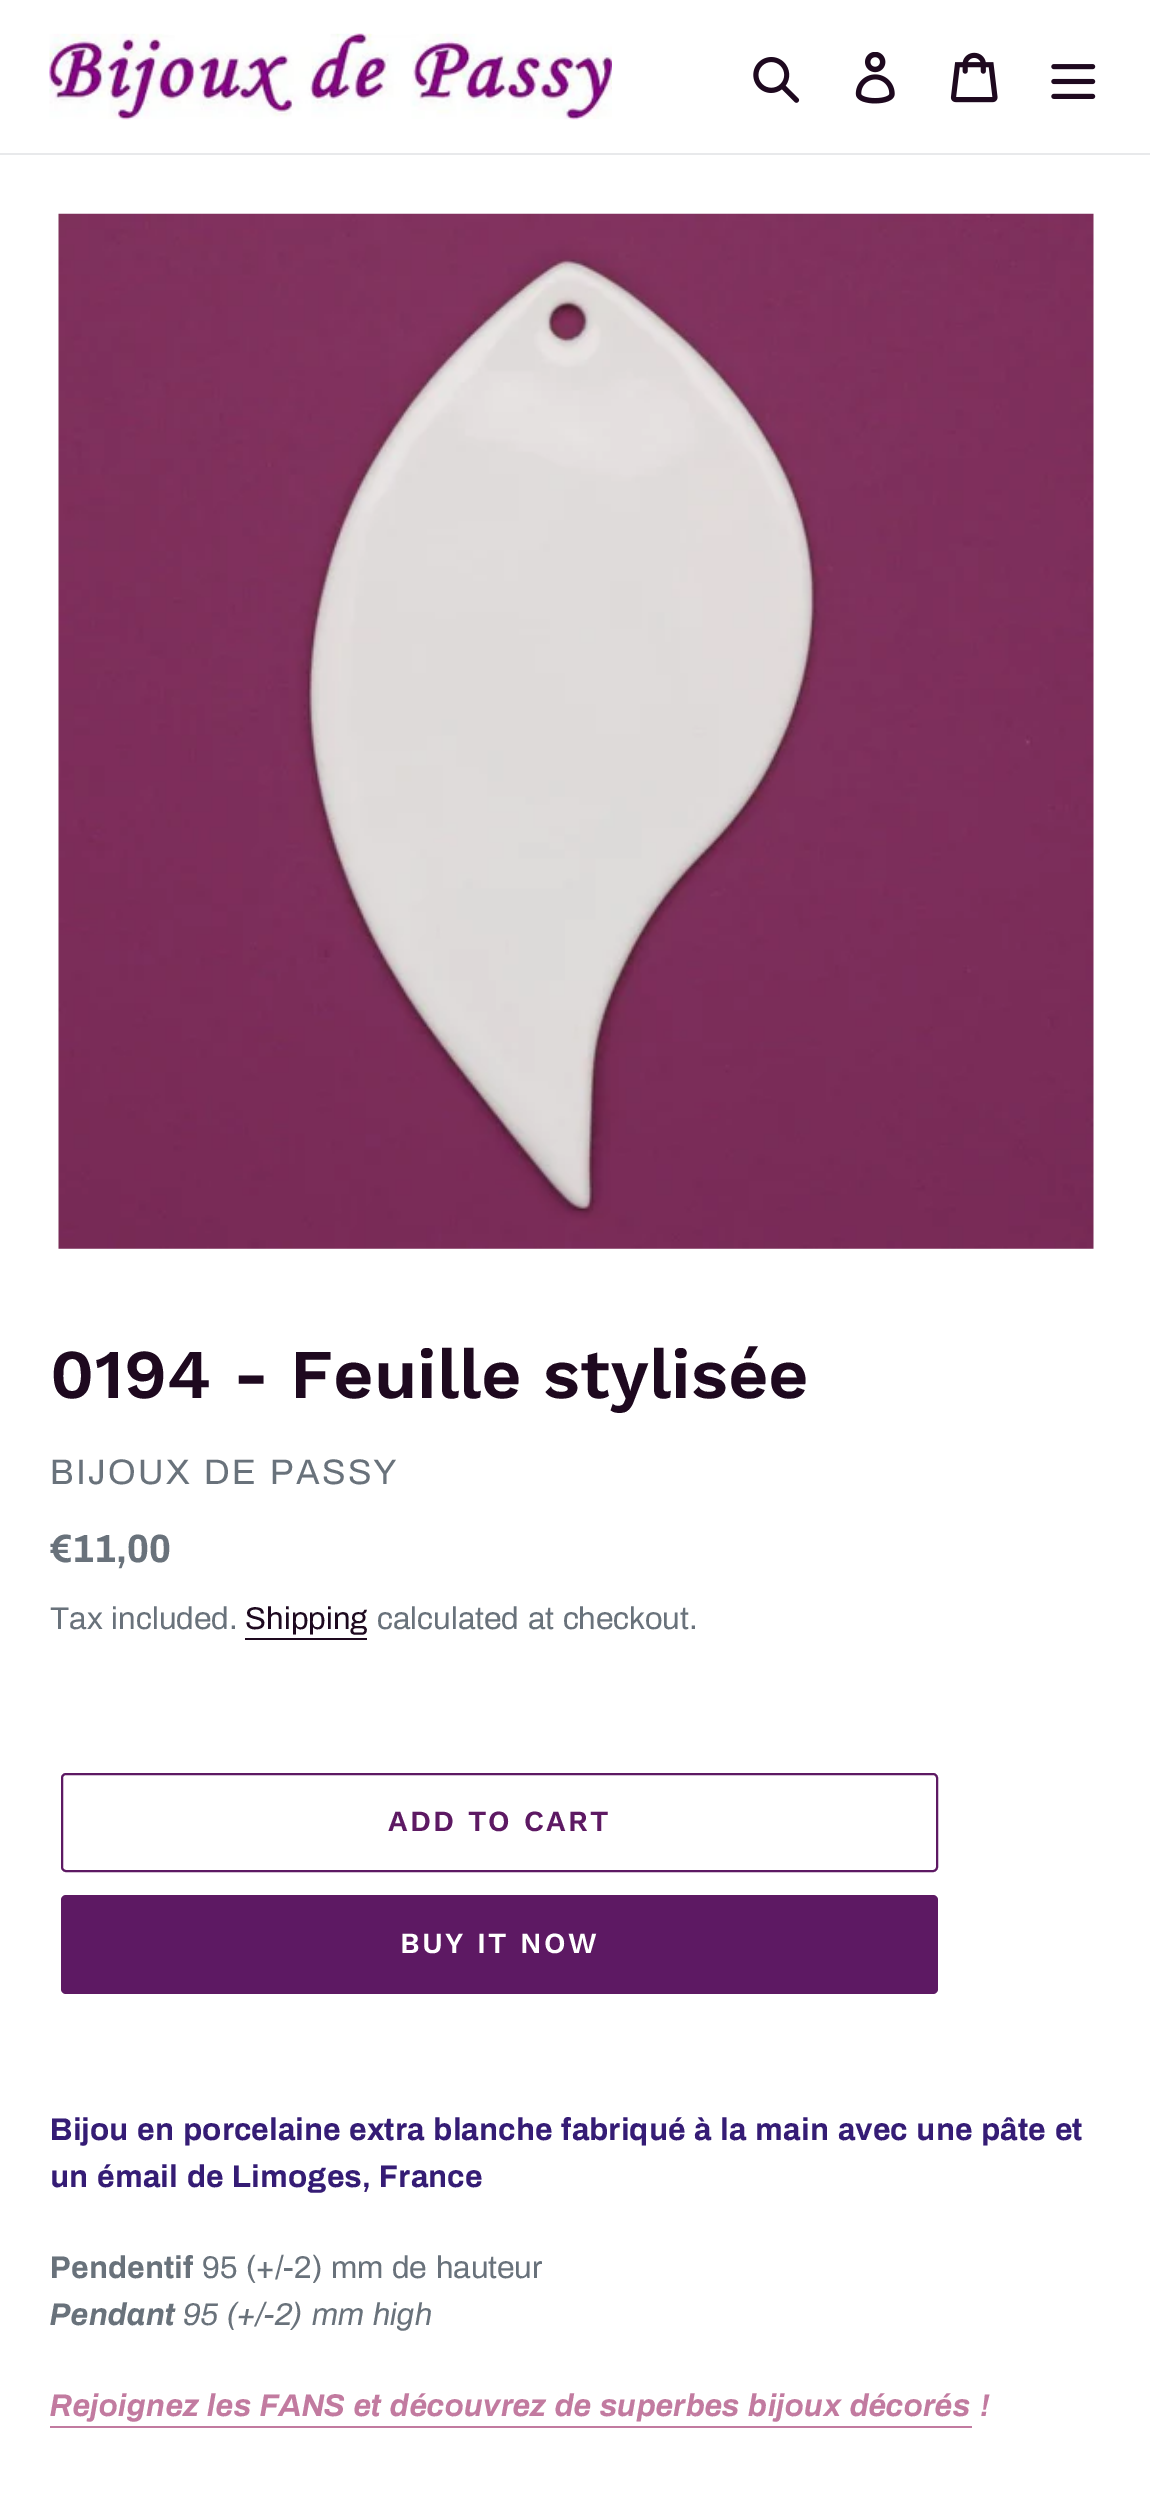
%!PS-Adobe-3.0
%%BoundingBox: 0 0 1150 2501
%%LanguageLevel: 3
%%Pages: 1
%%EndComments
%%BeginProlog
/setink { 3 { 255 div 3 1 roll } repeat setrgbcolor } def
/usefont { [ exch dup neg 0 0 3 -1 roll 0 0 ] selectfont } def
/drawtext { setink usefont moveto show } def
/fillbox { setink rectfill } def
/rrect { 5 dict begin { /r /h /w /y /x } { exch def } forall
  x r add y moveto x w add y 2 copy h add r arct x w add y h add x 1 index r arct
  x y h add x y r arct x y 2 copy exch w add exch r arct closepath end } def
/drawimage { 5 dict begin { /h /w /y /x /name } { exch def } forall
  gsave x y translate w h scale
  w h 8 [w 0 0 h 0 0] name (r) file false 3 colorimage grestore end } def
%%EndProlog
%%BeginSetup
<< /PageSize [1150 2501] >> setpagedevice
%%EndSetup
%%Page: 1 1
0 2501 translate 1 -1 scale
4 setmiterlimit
0 0 1150 2501 255 255 255 fillbox
0 153 1150 2 232 233 235 fillbox
(assets/img1.rgb) 49 33 563 87 drawimage
(assets/img2.rgb) 753 57 47 46 drawimage
(assets/img3.rgb) 855 52 40 52 drawimage
(assets/img4.rgb) 950 52 48 51 drawimage
(assets/img5.rgb) 1051 64 45 35 drawimage
(assets/img6.rgb) 58 213 1036 1036 drawimage
(0194 - Feuille stylisée) 50 1398 /WorkSans-SemiBold 69.75 30 9 31 drawtext
/Archivo-Regular 35.5 usefont
105 114 123 setink
50 1484 moveto 2.25 0 (BIJOUX DE PASSY) ashow
(€11,00) 50 1562 /Archivo-Bold 39.5 105 114 123 drawtext
(Tax included.) 50 1629 /Archivo-Regular 31.5 105 114 123 drawtext
(Shipping) 245 1629 /Archivo-Regular 31.5 30 9 31 drawtext
245 1638 122 2 30 9 31 fillbox
(calculated at checkout.) 377 1629 /Archivo-Regular 31.5 105 114 123 drawtext
93 25 99 setink
2 setlinewidth
62 1774 875 97 4 rrect stroke
/WorkSans-SemiBold 29.25 usefont
388 1831 moveto 2.25 0 (ADD TO CART) ashow
61 1895 877 99 5 rrect fill
255 255 255 setink
400 1953 moveto 2.25 0 (BUY IT NOW) ashow
(Bijou en porcelaine extra blanche fabriqué à la main avec une pâte et) 50 2140 /Archivo-Bold 31.5 53 28 117 drawtext
(un émail de Limoges, France) 50 2187 /Archivo-Bold 31.5 53 28 117 drawtext
(Pendentif) 50 2278 /Archivo-Bold 31.5 105 114 123 drawtext
(95 \(+/-2\) mm de hauteur) 202 2278 /Archivo-Regular 31.5 105 114 123 drawtext
(Pendant) 50 2325 /Archivo-BoldItalic 31.5 105 114 123 drawtext
(95 \(+/-2\) mm high) 183 2325 /Archivo-Italic 31.5 105 114 123 drawtext
/Archivo-BoldItalic 31.5 usefont
194 123 160 setink
50 2416 moveto -0.25 0 32 (Rejoignez les FANS et découvrez de superbes bijoux décorés) widthshow
50 2426 922 2 194 123 160 fillbox
(!) 980 2416 /Archivo-BoldItalic 31.5 194 123 160 drawtext
showpage
%%EOF
